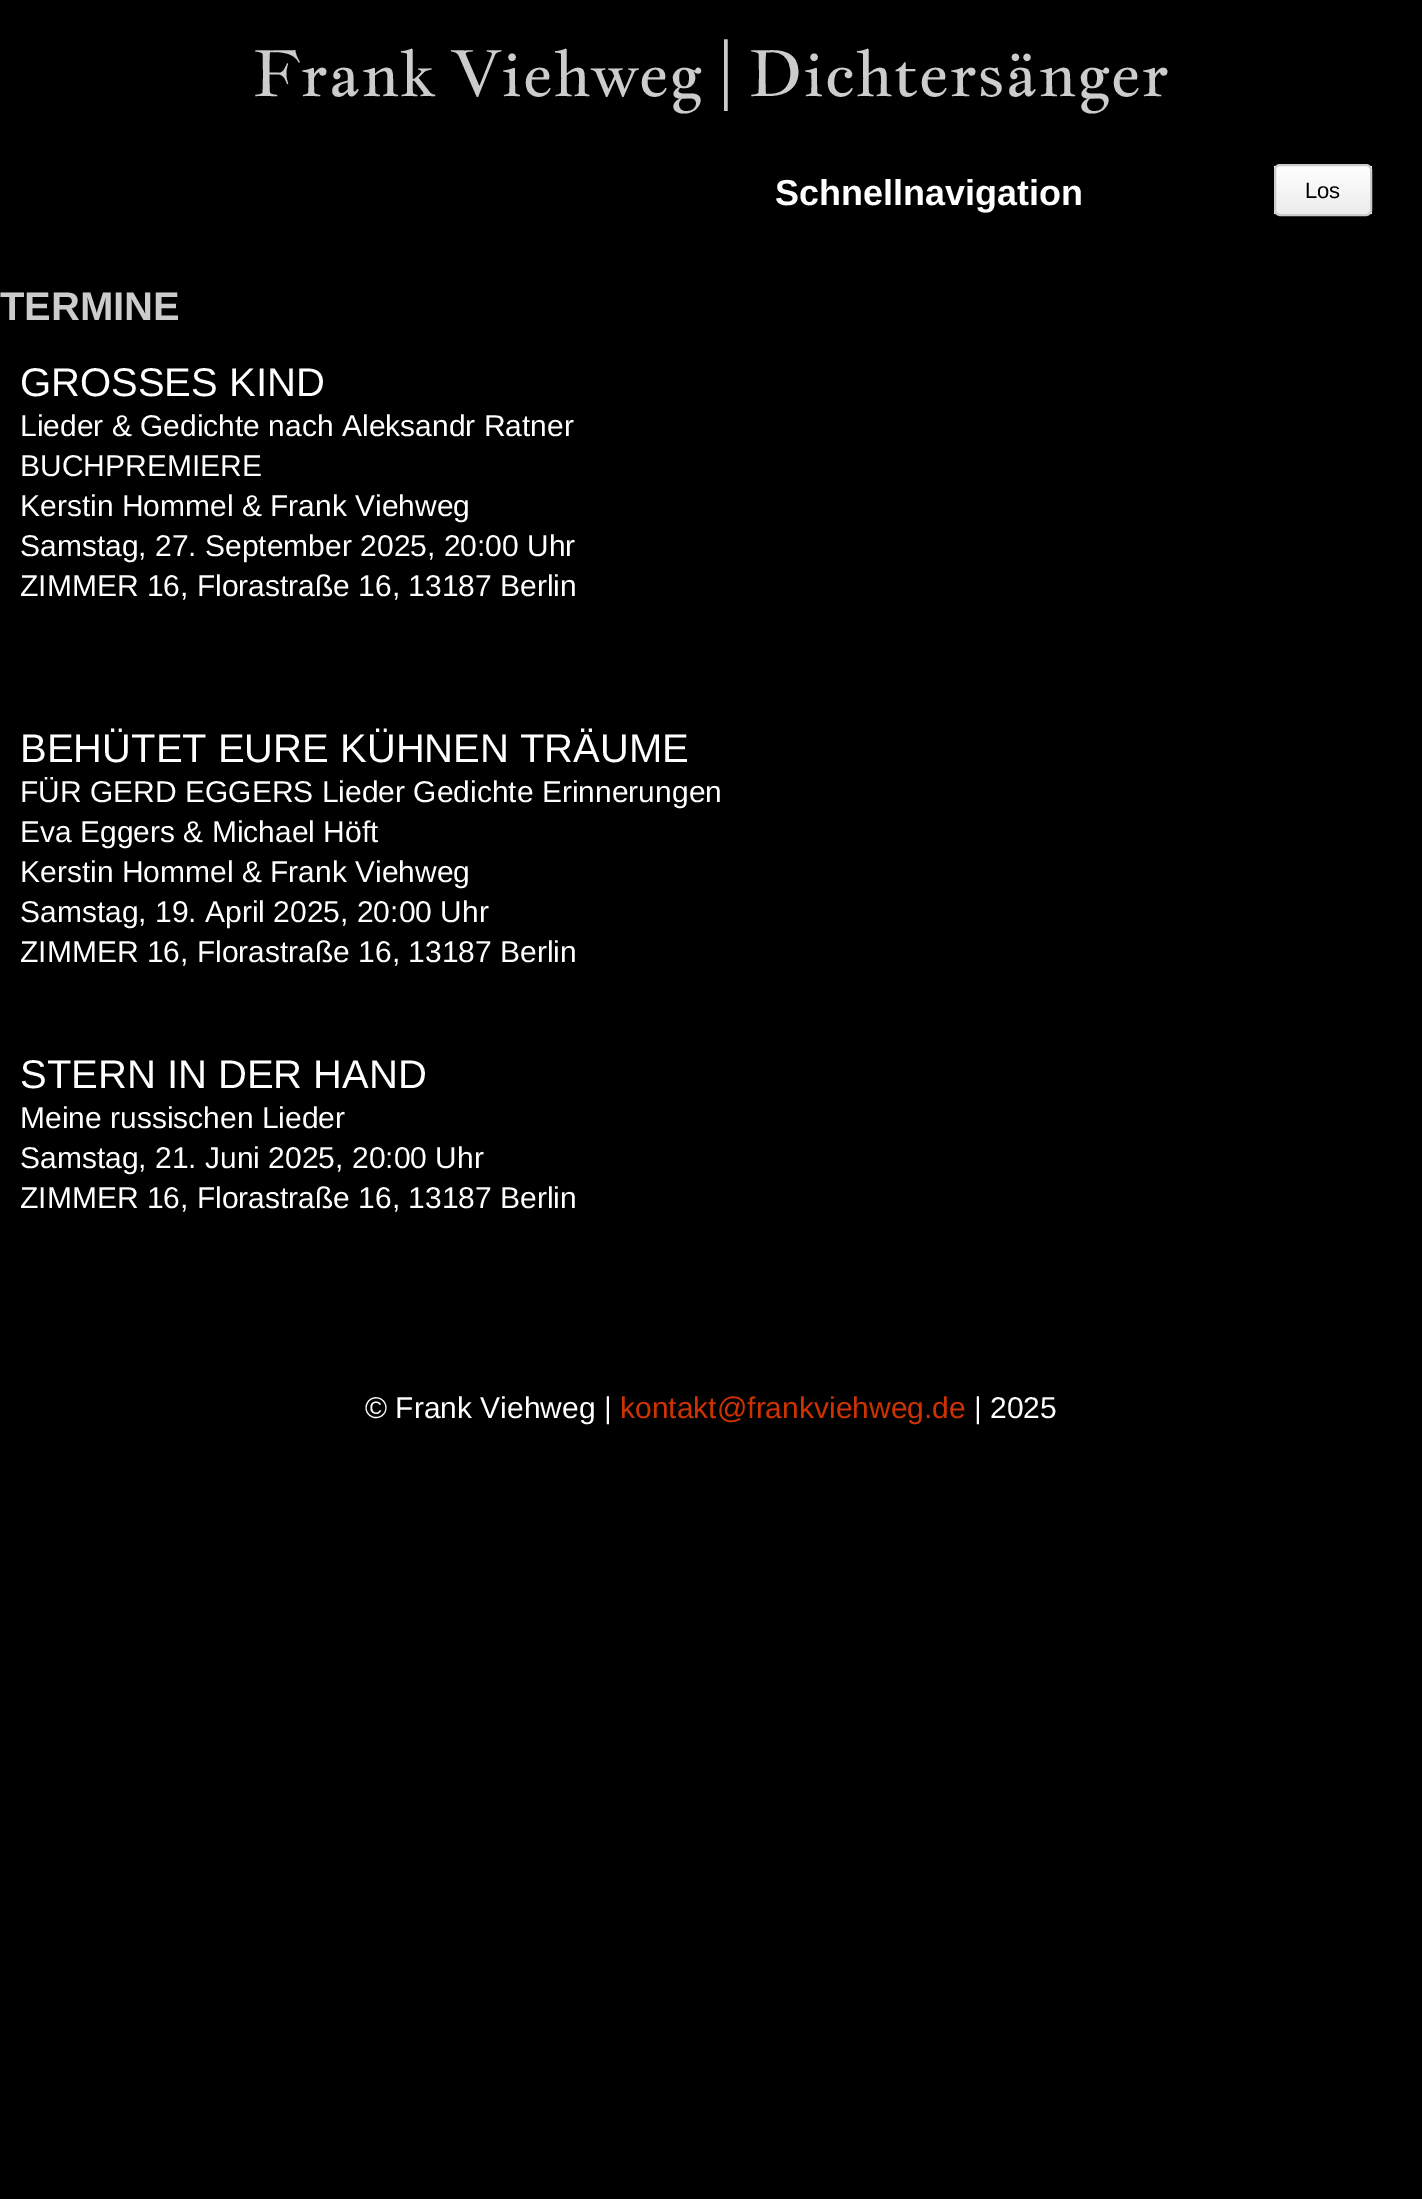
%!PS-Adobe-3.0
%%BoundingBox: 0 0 1422 2199
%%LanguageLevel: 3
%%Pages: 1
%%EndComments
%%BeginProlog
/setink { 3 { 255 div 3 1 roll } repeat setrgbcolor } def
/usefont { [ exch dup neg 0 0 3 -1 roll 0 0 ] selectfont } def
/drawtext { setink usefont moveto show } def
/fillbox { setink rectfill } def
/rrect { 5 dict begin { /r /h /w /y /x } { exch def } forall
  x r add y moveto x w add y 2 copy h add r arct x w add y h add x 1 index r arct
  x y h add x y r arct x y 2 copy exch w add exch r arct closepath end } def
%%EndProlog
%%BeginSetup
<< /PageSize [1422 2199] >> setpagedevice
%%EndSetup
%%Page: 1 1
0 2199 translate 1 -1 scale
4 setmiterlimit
0 0 1422 2199 0 0 0 fillbox
(Frank Viehweg | Dichtersänger) 253 96 /JacquesFrancois-Regular 64 204 204 204 drawtext
(Schnellnavigation) 775 205 /LiberationSans-Bold 36 255 255 255 drawtext
gsave
1274 164 98 52 6 rrect clip newpath
gsave 1274 166 moveto 1372 166 lineto 1372 214 lineto 1274 214 lineto closepath clip newpath
<< /ShadingType 2 /ColorSpace /DeviceRGB /Coords [1323 166 1323 214] /Extend [true true] /Function << /FunctionType 2 /Domain [0 1] /C0 [1 1 1] /C1 [0.925 0.925 0.925] /N 1 >> >> shfill grestore
grestore
204 204 204 setink
2 setlinewidth
1275 165 96 50 5 rrect stroke
(Los) 1305 198 /LiberationSans-Regular 22 0 0 0 drawtext
(TERMINE) 0 320 /LiberationSans-Bold 40 204 204 204 drawtext
(GROSSES KIND) 20 396 /LiberationSans-Regular 40 255 255 255 drawtext
(Lieder & Gedichte nach Aleksandr Ratner) 20 436 /LiberationSans-Regular 30 255 255 255 drawtext
(BUCHPREMIERE) 20 476 /LiberationSans-Regular 30 255 255 255 drawtext
(Kerstin Hommel & Frank Viehweg) 20 516 /LiberationSans-Regular 30 255 255 255 drawtext
(Samstag, 27. September 2025, 20:00 Uhr) 20 556 /LiberationSans-Regular 30 255 255 255 drawtext
(ZIMMER 16, Florastraße 16, 13187 Berlin) 20 596 /LiberationSans-Regular 30 255 255 255 drawtext
(BEHÜTET EURE KÜHNEN TRÄUME) 20 762 /LiberationSans-Regular 40 255 255 255 drawtext
(FÜR GERD EGGERS Lieder Gedichte Erinnerungen) 20 802 /LiberationSans-Regular 30 255 255 255 drawtext
(Eva Eggers & Michael Höft) 20 842 /LiberationSans-Regular 30 255 255 255 drawtext
(Kerstin Hommel & Frank Viehweg) 20 882 /LiberationSans-Regular 30 255 255 255 drawtext
(Samstag, 19. April 2025, 20:00 Uhr) 20 922 /LiberationSans-Regular 30 255 255 255 drawtext
(ZIMMER 16, Florastraße 16, 13187 Berlin) 20 962 /LiberationSans-Regular 30 255 255 255 drawtext
(STERN IN DER HAND) 20 1088 /LiberationSans-Regular 40 255 255 255 drawtext
(Meine russischen Lieder) 20 1128 /LiberationSans-Regular 30 255 255 255 drawtext
(Samstag, 21. Juni 2025, 20:00 Uhr) 20 1168 /LiberationSans-Regular 30 255 255 255 drawtext
(ZIMMER 16, Florastraße 16, 13187 Berlin) 20 1208 /LiberationSans-Regular 30 255 255 255 drawtext
(© Frank Viehweg |) 365 1418 /LiberationSans-Regular 30 255 255 255 drawtext
(kontakt@frankviehweg.de) 620 1418 /LiberationSans-Regular 30 204 51 0 drawtext
(| 2025) 974 1418 /LiberationSans-Regular 30 255 255 255 drawtext
showpage
%%EOF
